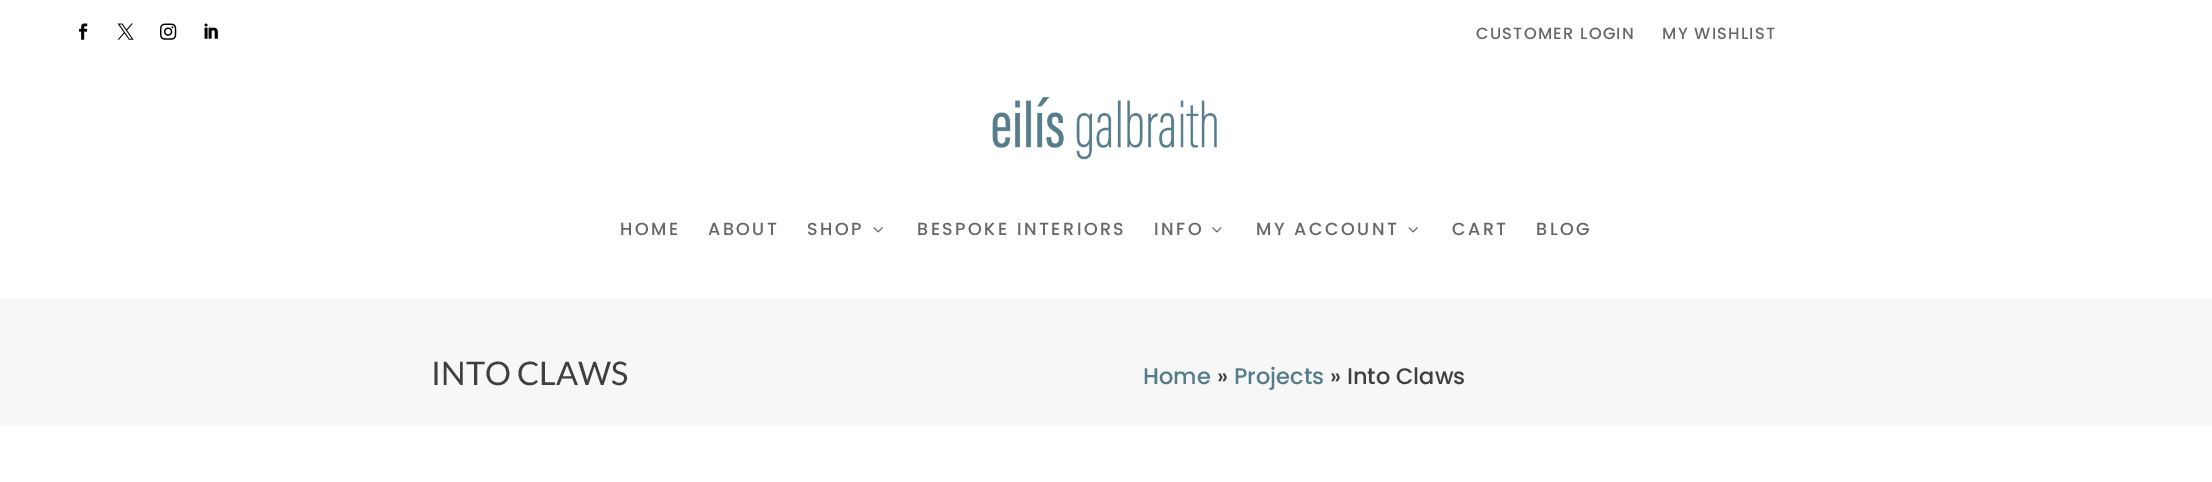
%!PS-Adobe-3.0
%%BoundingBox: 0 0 2212 482
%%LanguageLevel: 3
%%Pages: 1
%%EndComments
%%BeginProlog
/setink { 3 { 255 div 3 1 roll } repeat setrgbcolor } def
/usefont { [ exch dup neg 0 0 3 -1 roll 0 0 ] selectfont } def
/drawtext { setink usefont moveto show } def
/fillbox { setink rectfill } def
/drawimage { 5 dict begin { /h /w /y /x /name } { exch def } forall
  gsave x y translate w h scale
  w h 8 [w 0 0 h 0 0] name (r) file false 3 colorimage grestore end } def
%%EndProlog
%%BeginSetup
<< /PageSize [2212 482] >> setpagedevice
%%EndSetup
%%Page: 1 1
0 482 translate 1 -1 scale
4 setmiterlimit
0 0 2212 482 255 255 255 fillbox
(assets/img1.rgb) 79 23 9 17 drawimage
(assets/img2.rgb) 117 23 17 17 drawimage
(assets/img3.rgb) 160 23 17 17 drawimage
(assets/img4.rgb) 204 23 14 16 drawimage
/Poppins-Medium 16.25 usefont
102 102 102 setink
1476 39 moveto 1.25 0 (CUSTOMER LOGIN) ashow
1662 39 moveto 1.25 0 (MY WISHLIST) ashow
(assets/img5.rgb) 992 97 225 63 drawimage
/Poppins-Medium 17.5 usefont
620 235 moveto 2.5 0 (HOME) ashow
708 235 moveto 2.5 0 (ABOUT) ashow
807 235 moveto 2.5 0 (SHOP) ashow
(assets/img6.rgb) 873 227 10 6 drawimage
917 235 moveto 2.5 0 (BESPOKE INTERIORS) ashow
1154 235 moveto 2.5 0 (INFO) ashow
(assets/img7.rgb) 1212 227 10 6 drawimage
1256 235 moveto 2.5 0 (MY ACCOUNT) ashow
(assets/img6.rgb) 1408 227 10 6 drawimage
1452 235 moveto 2.5 0 (CART) ashow
1536 235 moveto 2.5 0 (BLOG) ashow
0 298 2212 128 247 247 247 fillbox
(INTO CLAWS) 431 385 /Lato-Regular 32.5 63 63 63 drawtext
(Home) 1143 384 /Poppins-Medium 22.5 85 124 139 drawtext
(») 1217 384 /Poppins-Medium 22.5 63 63 63 drawtext
(Projects) 1234 384 /Poppins-Medium 22.5 85 124 139 drawtext
(» Into Claws) 1330 384 /Poppins-Medium 22.5 63 63 63 drawtext
showpage
%%EOF
